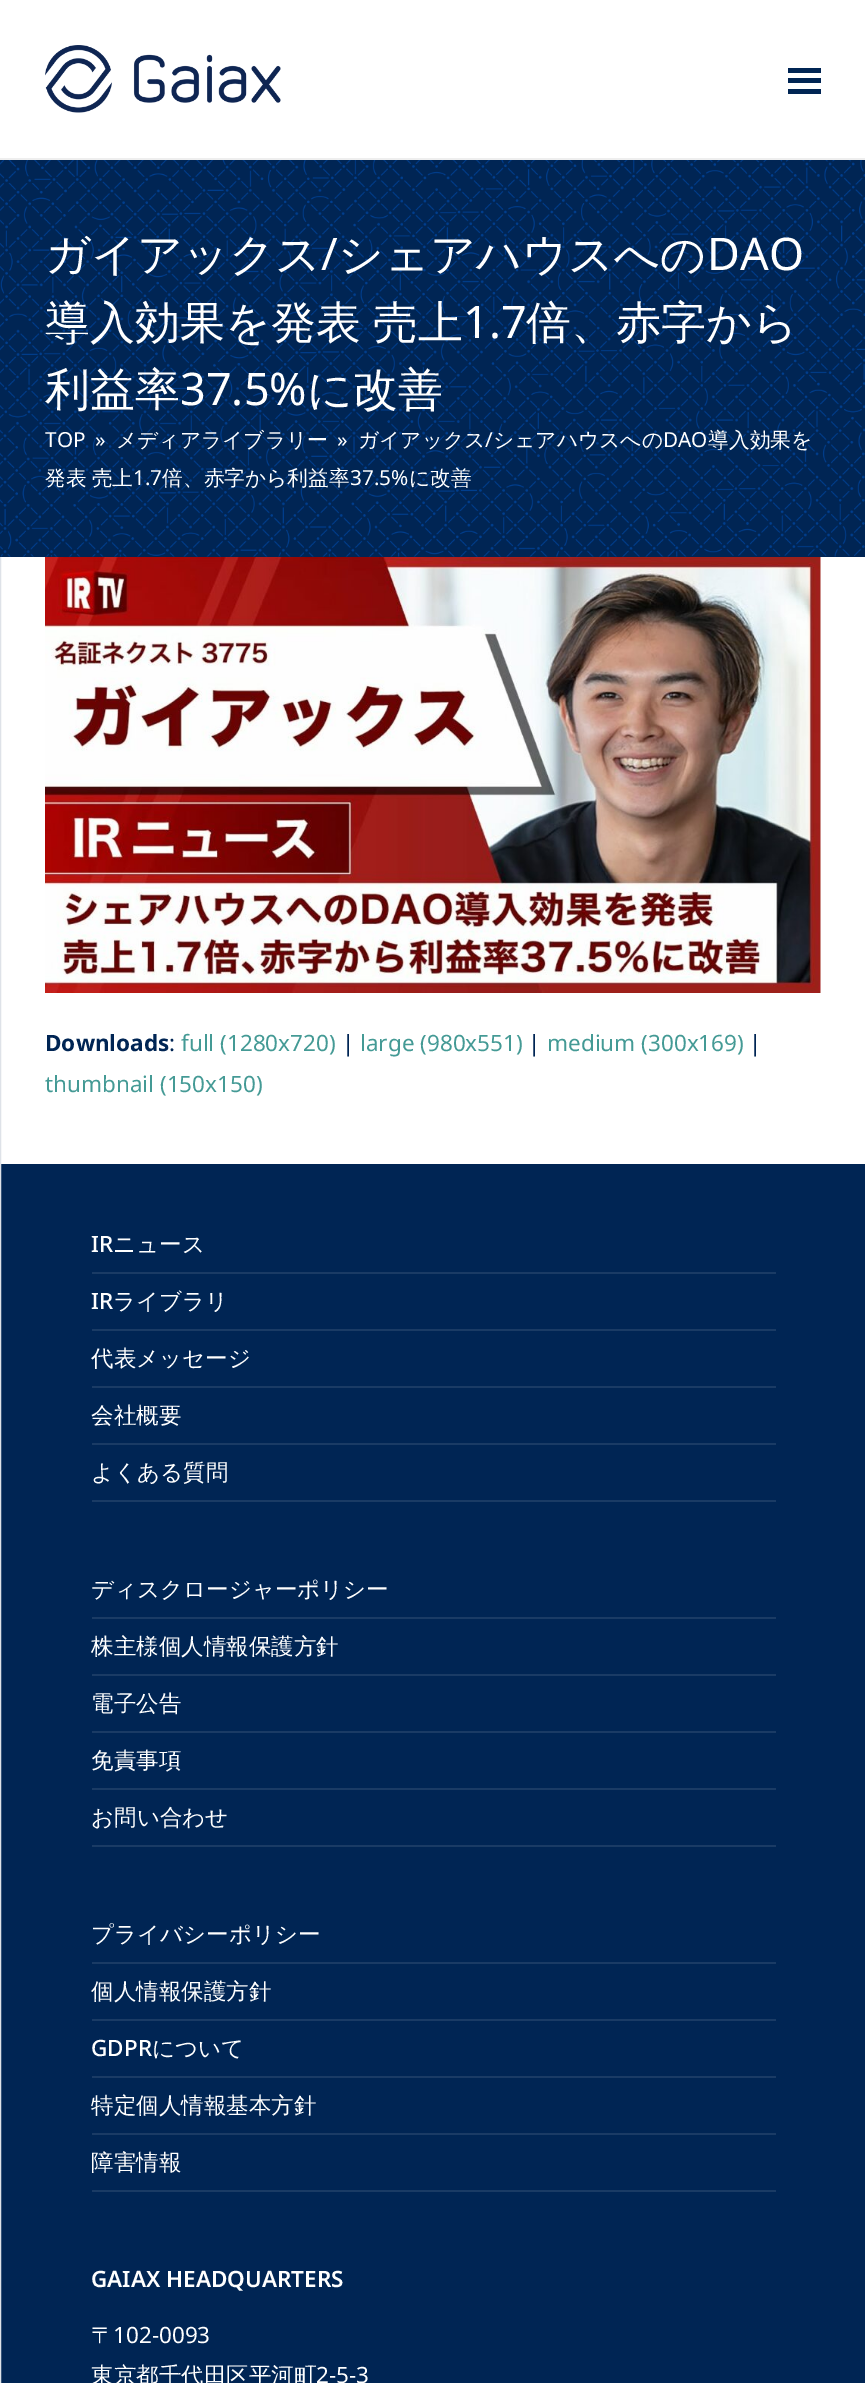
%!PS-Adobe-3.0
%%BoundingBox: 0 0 865 2383
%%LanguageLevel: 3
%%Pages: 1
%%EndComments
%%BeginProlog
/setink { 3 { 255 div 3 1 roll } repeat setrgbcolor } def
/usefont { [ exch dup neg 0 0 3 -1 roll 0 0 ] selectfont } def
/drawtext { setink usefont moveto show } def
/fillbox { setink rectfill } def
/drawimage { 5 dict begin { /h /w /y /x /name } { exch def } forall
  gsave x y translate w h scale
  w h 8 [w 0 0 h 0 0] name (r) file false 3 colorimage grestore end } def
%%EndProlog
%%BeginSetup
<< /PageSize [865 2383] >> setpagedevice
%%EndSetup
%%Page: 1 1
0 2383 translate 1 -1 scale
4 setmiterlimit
0 0 865 2383 255 255 255 fillbox
(assets/img3.rgb) 45 557 776 436 drawimage
1 1164 864 1219 0 37 84 fillbox
222 226 232 setink
2 setlinewidth
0 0 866 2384 rectstroke
0 0 865 158 255 255 255 fillbox
(assets/img1.rgb) 45 45 236 68 drawimage
788 78 33 5 0 37 84 fillbox
788 68 33 5 0 37 84 fillbox
788 89 33 5 0 37 84 fillbox
0 556 865 1 0 37 84 fillbox
(assets/img2.rgb) 0 160 865 397 drawimage
0 158 865 2 238 238 238 fillbox
(ガイアックス) 45 270 /WenQuanYiZenHei-Medium 45 255 255 255 drawtext
(/) 321 270 /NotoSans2-Regular 45 255 255 255 drawtext
(シェアハウスへの) 338 270 /WenQuanYiZenHei-Medium 45 255 255 255 drawtext
(DAO) 707 270 /NotoSans2-Regular 45 255 255 255 drawtext
/WenQuanYiZenHei-Medium 45 usefont
45 338 moveto -2 0 32 (導入効果を発表 売上) widthshow
(1.7) 463 338 /NotoSans2-Regular 45 255 255 255 drawtext
(倍、赤字から) 526 338 /WenQuanYiZenHei-Medium 45 255 255 255 drawtext
(利益率) 45 405 /WenQuanYiZenHei-Medium 45 255 255 255 drawtext
(37.5%) 180 405 /NotoSans2-Regular 45 255 255 255 drawtext
(に改善) 307 405 /WenQuanYiZenHei-Medium 45 255 255 255 drawtext
(TOP) 45 447 /NotoSans-Regular 20.75 255 255 255 drawtext
(») 95 447 /NotoSans-Regular 20.75 255 255 255 drawtext
(メディアライブラリー) 116 447 /WenQuanYiZenHei-Medium 20.75 255 255 255 drawtext
(») 337 447 /NotoSans-Regular 20.75 255 255 255 drawtext
(ガイアックス) 358 447 /WenQuanYiZenHei-Medium 20.75 255 255 255 drawtext
(/) 485 447 /NotoSans-Regular 20.75 255 255 255 drawtext
(シェアハウスへの) 493 447 /WenQuanYiZenHei-Medium 20.75 255 255 255 drawtext
(DAO) 663 447 /NotoSans-Regular 20.75 255 255 255 drawtext
(導入効果を) 708 447 /WenQuanYiZenHei-Medium 20.75 255 255 255 drawtext
45 485 moveto -1 0 32 (発表 売上) widthshow
(1.7) 133 485 /NotoSans-Regular 20.75 255 255 255 drawtext
(倍、赤字から利益率) 162 485 /WenQuanYiZenHei-Medium 20.75 255 255 255 drawtext
(37.5%) 350 485 /NotoSans-Regular 20.75 255 255 255 drawtext
(に改善) 409 485 /WenQuanYiZenHei-Medium 20.75 255 255 255 drawtext
(Downloads) 45 1051 /NotoSans-Bold 22.5 0 37 84 drawtext
(:) 169 1051 /NotoSans-Regular 22.5 0 37 84 drawtext
(full \(1280x720\)) 181 1051 /NotoSans-Regular 22.5 68 154 149 drawtext
(|) 342 1051 /NotoSans-Regular 22.5 0 37 84 drawtext
(large \(980x551\)) 360 1051 /NotoSans-Regular 22.5 68 154 149 drawtext
(|) 528 1051 /NotoSans-Regular 22.5 0 37 84 drawtext
(medium \(300x169\)) 547 1051 /NotoSans-Regular 22.5 68 154 149 drawtext
(|) 749 1051 /NotoSans-Regular 22.5 0 37 84 drawtext
(thumbnail \(150x150\)) 45 1092 /NotoSans-Regular 22.5 68 154 149 drawtext
92 1272 684 2 26 59 101 fillbox
(IR) 91 1252 /NotoSans-Medium 22.5 255 255 255 drawtext
(ニュース) 113 1252 /WenQuanYiZenHei-Medium 22.5 255 255 255 drawtext
92 1329 684 2 26 59 101 fillbox
(IR) 91 1309 /NotoSans-Medium 22.5 255 255 255 drawtext
(ライブラリ) 113 1309 /WenQuanYiZenHei-Medium 22.5 255 255 255 drawtext
92 1386 684 2 26 59 101 fillbox
(代表メッセージ) 91 1366 /WenQuanYiZenHei-Medium 22.5 255 255 255 drawtext
92 1443 684 2 26 59 101 fillbox
(会社概要) 91 1423 /WenQuanYiZenHei-Medium 22.5 255 255 255 drawtext
92 1500 684 2 26 59 101 fillbox
(よくある質問) 91 1480 /WenQuanYiZenHei-Medium 22.5 255 255 255 drawtext
92 1617 684 2 26 59 101 fillbox
(ディスクロージャーポリシー) 91 1597 /WenQuanYiZenHei-Medium 22.5 255 255 255 drawtext
92 1674 684 2 26 59 101 fillbox
(株主様個人情報保護方針) 91 1654 /WenQuanYiZenHei-Medium 22.5 255 255 255 drawtext
92 1731 684 2 26 59 101 fillbox
(電子公告) 91 1711 /WenQuanYiZenHei-Medium 22.5 255 255 255 drawtext
92 1788 684 2 26 59 101 fillbox
(免責事項) 91 1768 /WenQuanYiZenHei-Medium 22.5 255 255 255 drawtext
92 1845 684 2 26 59 101 fillbox
(お問い合わせ) 91 1825 /WenQuanYiZenHei-Medium 22.5 255 255 255 drawtext
92 1962 684 2 26 59 101 fillbox
(プライバシーポリシー) 91 1942 /WenQuanYiZenHei-Medium 22.5 255 255 255 drawtext
92 2019 684 2 26 59 101 fillbox
(個人情報保護方針) 91 1999 /WenQuanYiZenHei-Medium 22.5 255 255 255 drawtext
92 2076 684 2 26 59 101 fillbox
(GDPR) 91 2056 /NotoSans-Medium 22.5 255 255 255 drawtext
(について) 152 2056 /WenQuanYiZenHei-Medium 22.5 255 255 255 drawtext
92 2133 684 2 26 59 101 fillbox
(特定個人情報基本方針) 91 2113 /WenQuanYiZenHei-Medium 22.5 255 255 255 drawtext
92 2190 684 2 26 59 101 fillbox
(障害情報) 91 2170 /WenQuanYiZenHei-Medium 22.5 255 255 255 drawtext
(GAIAX HEADQUARTERS) 91 2287 /NotoSans-SemiBold 22.5 255 255 255 drawtext
(〒) 91 2343 /WenQuanYiZenHei-Medium 22.5 255 255 255 drawtext
(102-0093) 113 2343 /NotoSans-Regular 22.5 255 255 255 drawtext
(東京都千代田区平河町) 91 2383 /WenQuanYiZenHei-Medium 22.5 255 255 255 drawtext
(2-5-3) 316 2383 /NotoSans-Regular 22.5 255 255 255 drawtext
showpage
%%EOF
